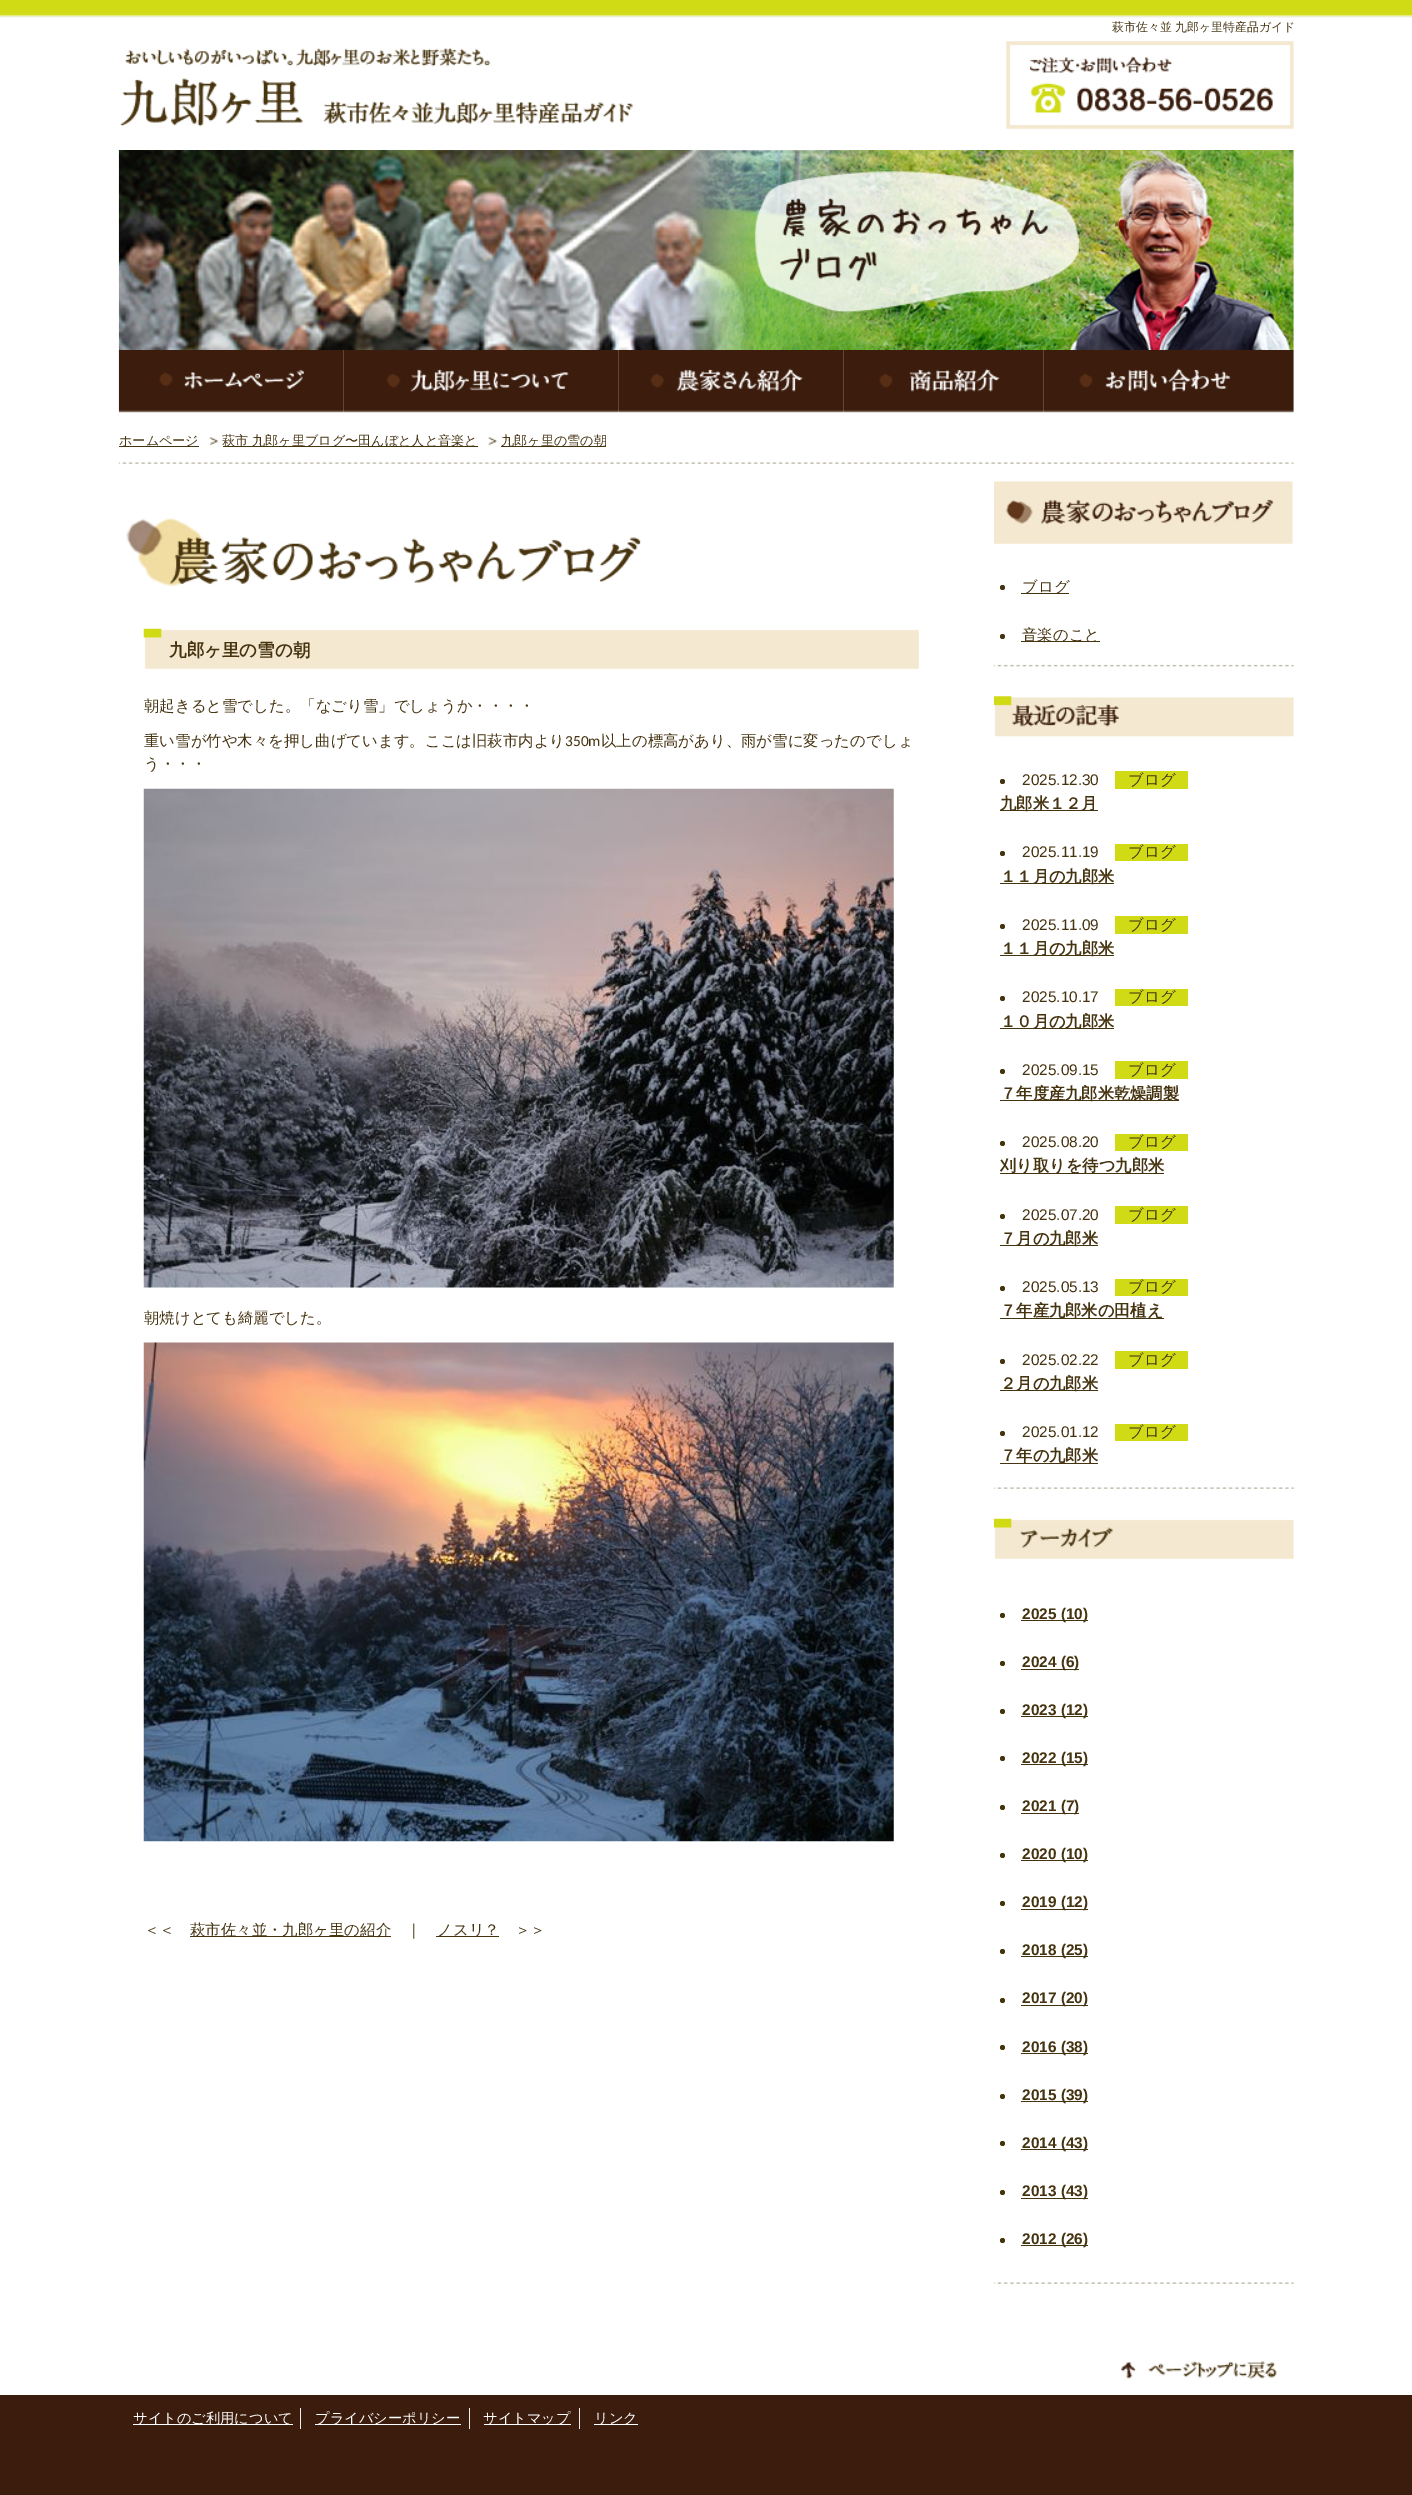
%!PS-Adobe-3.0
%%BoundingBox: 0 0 1412 2495
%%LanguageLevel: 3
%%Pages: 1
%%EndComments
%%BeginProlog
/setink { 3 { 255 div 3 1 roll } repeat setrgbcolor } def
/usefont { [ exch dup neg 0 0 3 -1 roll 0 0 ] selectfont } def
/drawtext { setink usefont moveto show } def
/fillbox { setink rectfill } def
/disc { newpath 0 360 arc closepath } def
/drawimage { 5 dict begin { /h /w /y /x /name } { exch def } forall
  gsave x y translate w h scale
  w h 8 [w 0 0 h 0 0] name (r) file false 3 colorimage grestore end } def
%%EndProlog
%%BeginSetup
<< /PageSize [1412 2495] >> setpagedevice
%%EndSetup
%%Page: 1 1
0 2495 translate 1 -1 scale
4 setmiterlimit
0 0 1412 2495 255 255 255 fillbox
(assets/img1.rgb) 0 0 1412 18 drawimage
(萩市佐々並 九郎ヶ里特産品ガイド) 1112 31 /WenQuanYiZenHei-Medium 11.9 70 51 16 drawtext
(assets/img2.rgb) 120 48 513 79 drawimage
(assets/img3.rgb) 1006 41 288 88 drawimage
(assets/img4.rgb) 118 150 1176 200 drawimage
(assets/img5.rgb) 118 350 226 63 drawimage
(assets/img6.rgb) 343 350 276 63 drawimage
(assets/img7.rgb) 618 350 226 63 drawimage
(assets/img8.rgb) 843 350 201 63 drawimage
(assets/img9.rgb) 1043 350 251 63 drawimage
(assets/img10.rgb) 118 462 1176 2 drawimage
119 446 80 1 70 51 16 fillbox
(ホームページ) 119 445 /WenQuanYiZenHei-Medium 13.1 70 51 16 drawtext
(assets/img11.rgb) 209 437 9 9 drawimage
223 446 255 1 70 51 16 fillbox
(萩市 九郎ヶ里ブログ〜田んぼと人と音楽と) 222 445 /WenQuanYiZenHei-Medium 13.1 70 51 16 drawtext
(assets/img12.rgb) 488 437 9 9 drawimage
501 446 105 1 70 51 16 fillbox
(九郎ヶ里の雪の朝) 501 445 /WenQuanYiZenHei-Medium 13.1 70 51 16 drawtext
(assets/img13.rgb) 126 518 515 69 drawimage
(assets/img14.rgb) 143 628 776 41 drawimage
(九郎ヶ里の雪の朝) 169 656 /WenQuanYiZenHei-Bold 17.5 70 51 16 drawtext
(朝起きると雪でした。「なごり雪」でしょうか・・・・) 144 711 /WenQuanYiZenHei-Medium 15.4 70 51 16 drawtext
(重い雪が竹や木々を押し曲げています。ここは旧萩市内より) 144 746 /WenQuanYiZenHei-Medium 15.4 70 51 16 drawtext
(350m) 565 746 /Carlito-Regular 15.4 70 51 16 drawtext
(以上の標高があり、雨が雪に変ったのでしょ) 601 746 /WenQuanYiZenHei-Medium 15.4 70 51 16 drawtext
(う・・・) 144 769 /WenQuanYiZenHei-Medium 15.4 70 51 16 drawtext
(assets/img15.rgb) 143 788 751 500 drawimage
(朝焼けとても綺麗でした。) 144 1323 /WenQuanYiZenHei-Medium 15.4 70 51 16 drawtext
(assets/img16.rgb) 143 1342 751 500 drawimage
(＜＜) 144 1935 /WenQuanYiZenHei-Medium 15.4 70 51 16 drawtext
190 1936 201 1 70 51 16 fillbox
(萩市佐々並・九郎ヶ里の紹介) 190 1935 /WenQuanYiZenHei-Medium 15.4 70 51 16 drawtext
(｜) 406 1935 /WenQuanYiZenHei-Medium 15.4 70 51 16 drawtext
436 1936 63 1 70 51 16 fillbox
(ノスリ？) 437 1935 /WenQuanYiZenHei-Medium 15.4 70 51 16 drawtext
(＞＞) 515 1935 /WenQuanYiZenHei-Medium 15.4 70 51 16 drawtext
(assets/img17.rgb) 994 481 299 63 drawimage
(assets/img18.rgb) 993 664 301 3 drawimage
1002.5 587.5 2.5 disc fill
1021 593 48 1 70 51 16 fillbox
(ブログ) 1022 592 /WenQuanYiZenHei-Medium 15.4 70 51 16 drawtext
1002.5 636.5 2.5 disc fill
1021 641 79 1 70 51 16 fillbox
(音楽のこと) 1022 640 /WenQuanYiZenHei-Medium 15.4 70 51 16 drawtext
(assets/img19.rgb) 993 696 301 41 drawimage
(assets/img20.rgb) 994 1487 300 2 drawimage
1002.5 781.5 2.5 disc fill
(2025.12.30) 1022 785 /LiberationSans-Regular 15.4 70 51 16 drawtext
1115 771 73 18 208 219 21 fillbox
(ブログ) 1128 785 /WenQuanYiZenHei-Medium 15.4 70 51 16 drawtext
1000 810 98 1 70 51 16 fillbox
(九郎米１２月) 1000 809 /WenQuanYiZenHei-Bold 16.25 70 51 16 drawtext
1002.5 853.5 2.5 disc fill
(2025.11.19) 1022 857 /LiberationSans-Regular 15.4 70 51 16 drawtext
1115 844 73 17 208 219 21 fillbox
(ブログ) 1128 857 /WenQuanYiZenHei-Medium 15.4 70 51 16 drawtext
1000 883 114 1 70 51 16 fillbox
(１１月の九郎米) 1000 882 /WenQuanYiZenHei-Bold 16.25 70 51 16 drawtext
1002.5 926.5 2.5 disc fill
(2025.11.09) 1022 930 /LiberationSans-Regular 15.4 70 51 16 drawtext
1115 916 73 18 208 219 21 fillbox
(ブログ) 1128 930 /WenQuanYiZenHei-Medium 15.4 70 51 16 drawtext
1000 955 114 1 70 51 16 fillbox
(１１月の九郎米) 1000 954 /WenQuanYiZenHei-Bold 16.25 70 51 16 drawtext
1002.5 998.5 2.5 disc fill
(2025.10.17) 1022 1002 /LiberationSans-Regular 15.4 70 51 16 drawtext
1115 989 73 17 208 219 21 fillbox
(ブログ) 1128 1002 /WenQuanYiZenHei-Medium 15.4 70 51 16 drawtext
1000 1028 114 1 70 51 16 fillbox
(１０月の九郎米) 1000 1027 /WenQuanYiZenHei-Bold 16.25 70 51 16 drawtext
1002.5 1071.5 2.5 disc fill
(2025.09.15) 1022 1075 /LiberationSans-Regular 15.4 70 51 16 drawtext
1115 1061 73 18 208 219 21 fillbox
(ブログ) 1128 1075 /WenQuanYiZenHei-Medium 15.4 70 51 16 drawtext
1000 1100 179 1 70 51 16 fillbox
(７年度産九郎米乾燥調製) 1000 1099 /WenQuanYiZenHei-Bold 16.25 70 51 16 drawtext
1002.5 1143.5 2.5 disc fill
(2025.08.20) 1022 1147 /LiberationSans-Regular 15.4 70 51 16 drawtext
1115 1134 73 17 208 219 21 fillbox
(ブログ) 1128 1147 /WenQuanYiZenHei-Medium 15.4 70 51 16 drawtext
1000 1173 164 1 70 51 16 fillbox
(刈り取りを待つ九郎米) 1000 1171 /WenQuanYiZenHei-Bold 16.25 70 51 16 drawtext
1002.5 1216.5 2.5 disc fill
(2025.07.20) 1022 1220 /LiberationSans-Regular 15.4 70 51 16 drawtext
1115 1206 73 18 208 219 21 fillbox
(ブログ) 1128 1220 /WenQuanYiZenHei-Medium 15.4 70 51 16 drawtext
1000 1245 98 1 70 51 16 fillbox
(７月の九郎米) 1000 1244 /WenQuanYiZenHei-Bold 16.25 70 51 16 drawtext
1002.5 1288.5 2.5 disc fill
(2025.05.13) 1022 1292 /LiberationSans-Regular 15.4 70 51 16 drawtext
1115 1279 73 17 208 219 21 fillbox
(ブログ) 1128 1292 /WenQuanYiZenHei-Medium 15.4 70 51 16 drawtext
1000 1318 164 1 70 51 16 fillbox
(７年産九郎米の田植え) 1000 1316 /WenQuanYiZenHei-Bold 16.25 70 51 16 drawtext
1002.5 1361.5 2.5 disc fill
(2025.02.22) 1022 1365 /LiberationSans-Regular 15.4 70 51 16 drawtext
1115 1351 73 18 208 219 21 fillbox
(ブログ) 1128 1365 /WenQuanYiZenHei-Medium 15.4 70 51 16 drawtext
1000 1390 98 1 70 51 16 fillbox
(２月の九郎米) 1000 1389 /WenQuanYiZenHei-Bold 16.25 70 51 16 drawtext
1002.5 1433.5 2.5 disc fill
(2025.01.12) 1022 1437 /LiberationSans-Regular 15.4 70 51 16 drawtext
1115 1424 73 17 208 219 21 fillbox
(ブログ) 1128 1437 /WenQuanYiZenHei-Medium 15.4 70 51 16 drawtext
1000 1463 98 1 70 51 16 fillbox
(７年の九郎米) 1000 1461 /WenQuanYiZenHei-Bold 16.25 70 51 16 drawtext
(assets/img20.rgb) 994 2282 300 2 drawimage
(assets/img21.rgb) 993 1518 301 41 drawimage
1002.5 1615.5 2.5 disc fill
1021 1620 67 1 70 51 16 fillbox
(2025 \(10\)) 1022 1619 /LiberationSans-Bold 15.4 70 51 16 drawtext
1002.5 1663.5 2.5 disc fill
1021 1669 58 1 70 51 16 fillbox
(2024 \(6\)) 1022 1667 /LiberationSans-Bold 15.4 70 51 16 drawtext
1002.5 1711.5 2.5 disc fill
1021 1716 67 1 70 51 16 fillbox
(2023 \(12\)) 1022 1715 /LiberationSans-Bold 15.4 70 51 16 drawtext
1002.5 1758.5 2.5 disc fill
1021 1764 67 1 70 51 16 fillbox
(2022 \(15\)) 1022 1763 /LiberationSans-Bold 15.4 70 51 16 drawtext
1002.5 1807.5 2.5 disc fill
1021 1813 58 1 70 51 16 fillbox
(2021 \(7\)) 1022 1811 /LiberationSans-Bold 15.4 70 51 16 drawtext
1002.5 1855.5 2.5 disc fill
1021 1860 67 1 70 51 16 fillbox
(2020 \(10\)) 1022 1859 /LiberationSans-Bold 15.4 70 51 16 drawtext
1002.5 1903.5 2.5 disc fill
1021 1909 67 1 70 51 16 fillbox
(2019 \(12\)) 1022 1907 /LiberationSans-Bold 15.4 70 51 16 drawtext
1002.5 1951.5 2.5 disc fill
1021 1956 67 1 70 51 16 fillbox
(2018 \(25\)) 1022 1955 /LiberationSans-Bold 15.4 70 51 16 drawtext
1002.5 2000.5 2.5 disc fill
1021 2005 67 1 70 51 16 fillbox
(2017 \(20\)) 1022 2003 /LiberationSans-Bold 15.4 70 51 16 drawtext
1002.5 2047.5 2.5 disc fill
1021 2053 67 1 70 51 16 fillbox
(2016 \(38\)) 1022 2052 /LiberationSans-Bold 15.4 70 51 16 drawtext
1002.5 2096.5 2.5 disc fill
1021 2101 67 1 70 51 16 fillbox
(2015 \(39\)) 1022 2100 /LiberationSans-Bold 15.4 70 51 16 drawtext
1002.5 2143.5 2.5 disc fill
1021 2149 67 1 70 51 16 fillbox
(2014 \(43\)) 1022 2148 /LiberationSans-Bold 15.4 70 51 16 drawtext
1002.5 2192.5 2.5 disc fill
1021 2198 67 1 70 51 16 fillbox
(2013 \(43\)) 1022 2196 /LiberationSans-Bold 15.4 70 51 16 drawtext
1002.5 2240.5 2.5 disc fill
1021 2245 67 1 70 51 16 fillbox
(2012 \(26\)) 1022 2244 /LiberationSans-Bold 15.4 70 51 16 drawtext
(assets/img22.rgb) 1121 2361 156 18 drawimage
0 2395 1412 100 60 29 13 fillbox
133 2424 160 1 255 255 255 fillbox
(サイトのご利用について) 133 2423 /WenQuanYiZenHei-Medium 14.25 255 255 255 drawtext
300 2408 1 21 238 238 238 fillbox
315 2424 146 1 255 255 255 fillbox
(プライバシーポリシー) 315 2423 /WenQuanYiZenHei-Medium 14.25 255 255 255 drawtext
469 2408 1 21 238 238 238 fillbox
484 2424 87 1 255 255 255 fillbox
(サイトマップ) 483 2423 /WenQuanYiZenHei-Medium 14.25 255 255 255 drawtext
579 2408 1 21 238 238 238 fillbox
594 2424 44 1 255 255 255 fillbox
(リンク) 594 2423 /WenQuanYiZenHei-Medium 14.25 255 255 255 drawtext
showpage
%%EOF
